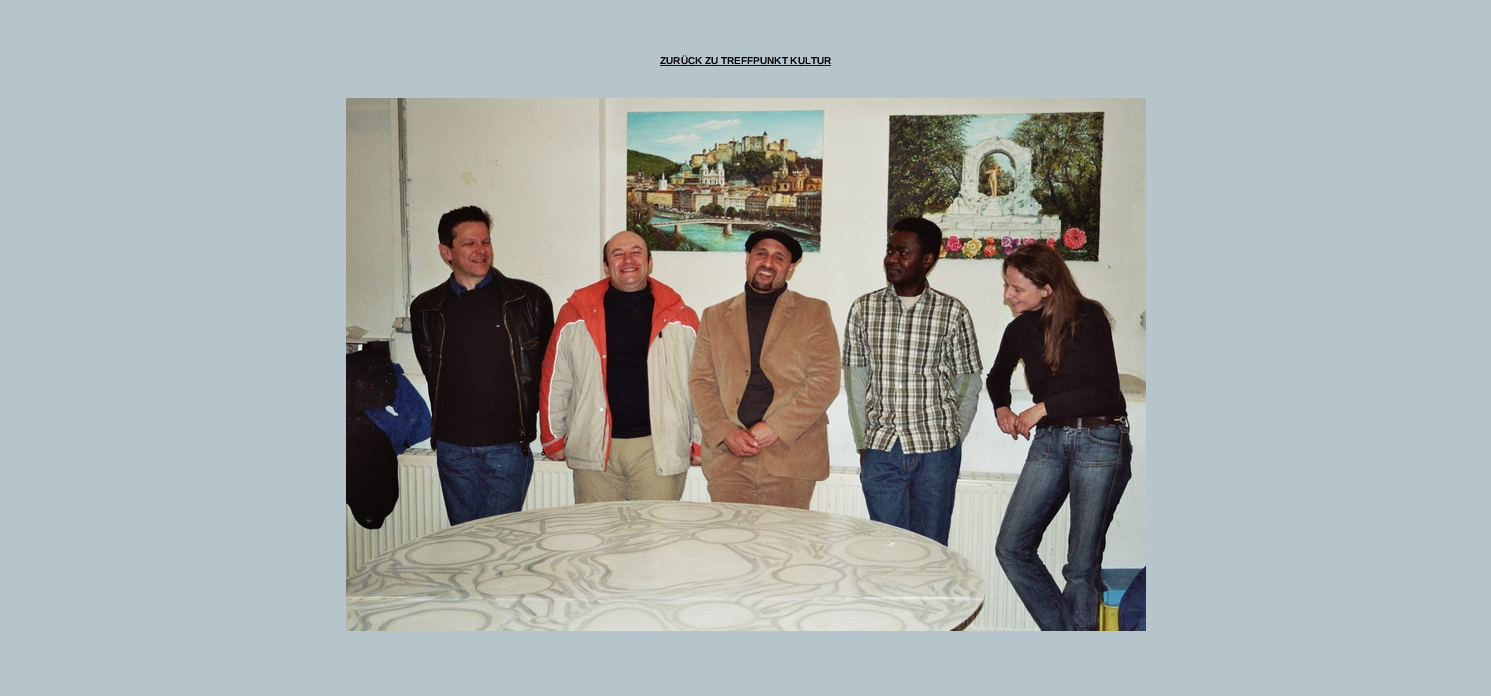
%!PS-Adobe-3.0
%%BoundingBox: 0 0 1491 696
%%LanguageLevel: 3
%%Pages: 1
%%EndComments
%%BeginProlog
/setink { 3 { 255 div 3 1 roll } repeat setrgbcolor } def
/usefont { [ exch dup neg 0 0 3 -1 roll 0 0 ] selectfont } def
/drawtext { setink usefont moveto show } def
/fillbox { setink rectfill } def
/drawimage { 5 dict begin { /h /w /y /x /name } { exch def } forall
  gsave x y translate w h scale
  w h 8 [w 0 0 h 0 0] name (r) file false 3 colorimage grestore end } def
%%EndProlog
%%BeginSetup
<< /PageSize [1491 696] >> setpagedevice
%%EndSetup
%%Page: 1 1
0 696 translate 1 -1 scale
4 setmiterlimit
0 0 1491 696 182 197 203 fillbox
(ZURÜCK ZU TREFFPUNKT KULTUR) 660 64 /LiberationSans-Bold 10 0 0 0 drawtext
660 65 171 1 0 0 238 fillbox
(assets/img1.rgb) 346 98 800 533 drawimage
showpage
%%EOF
